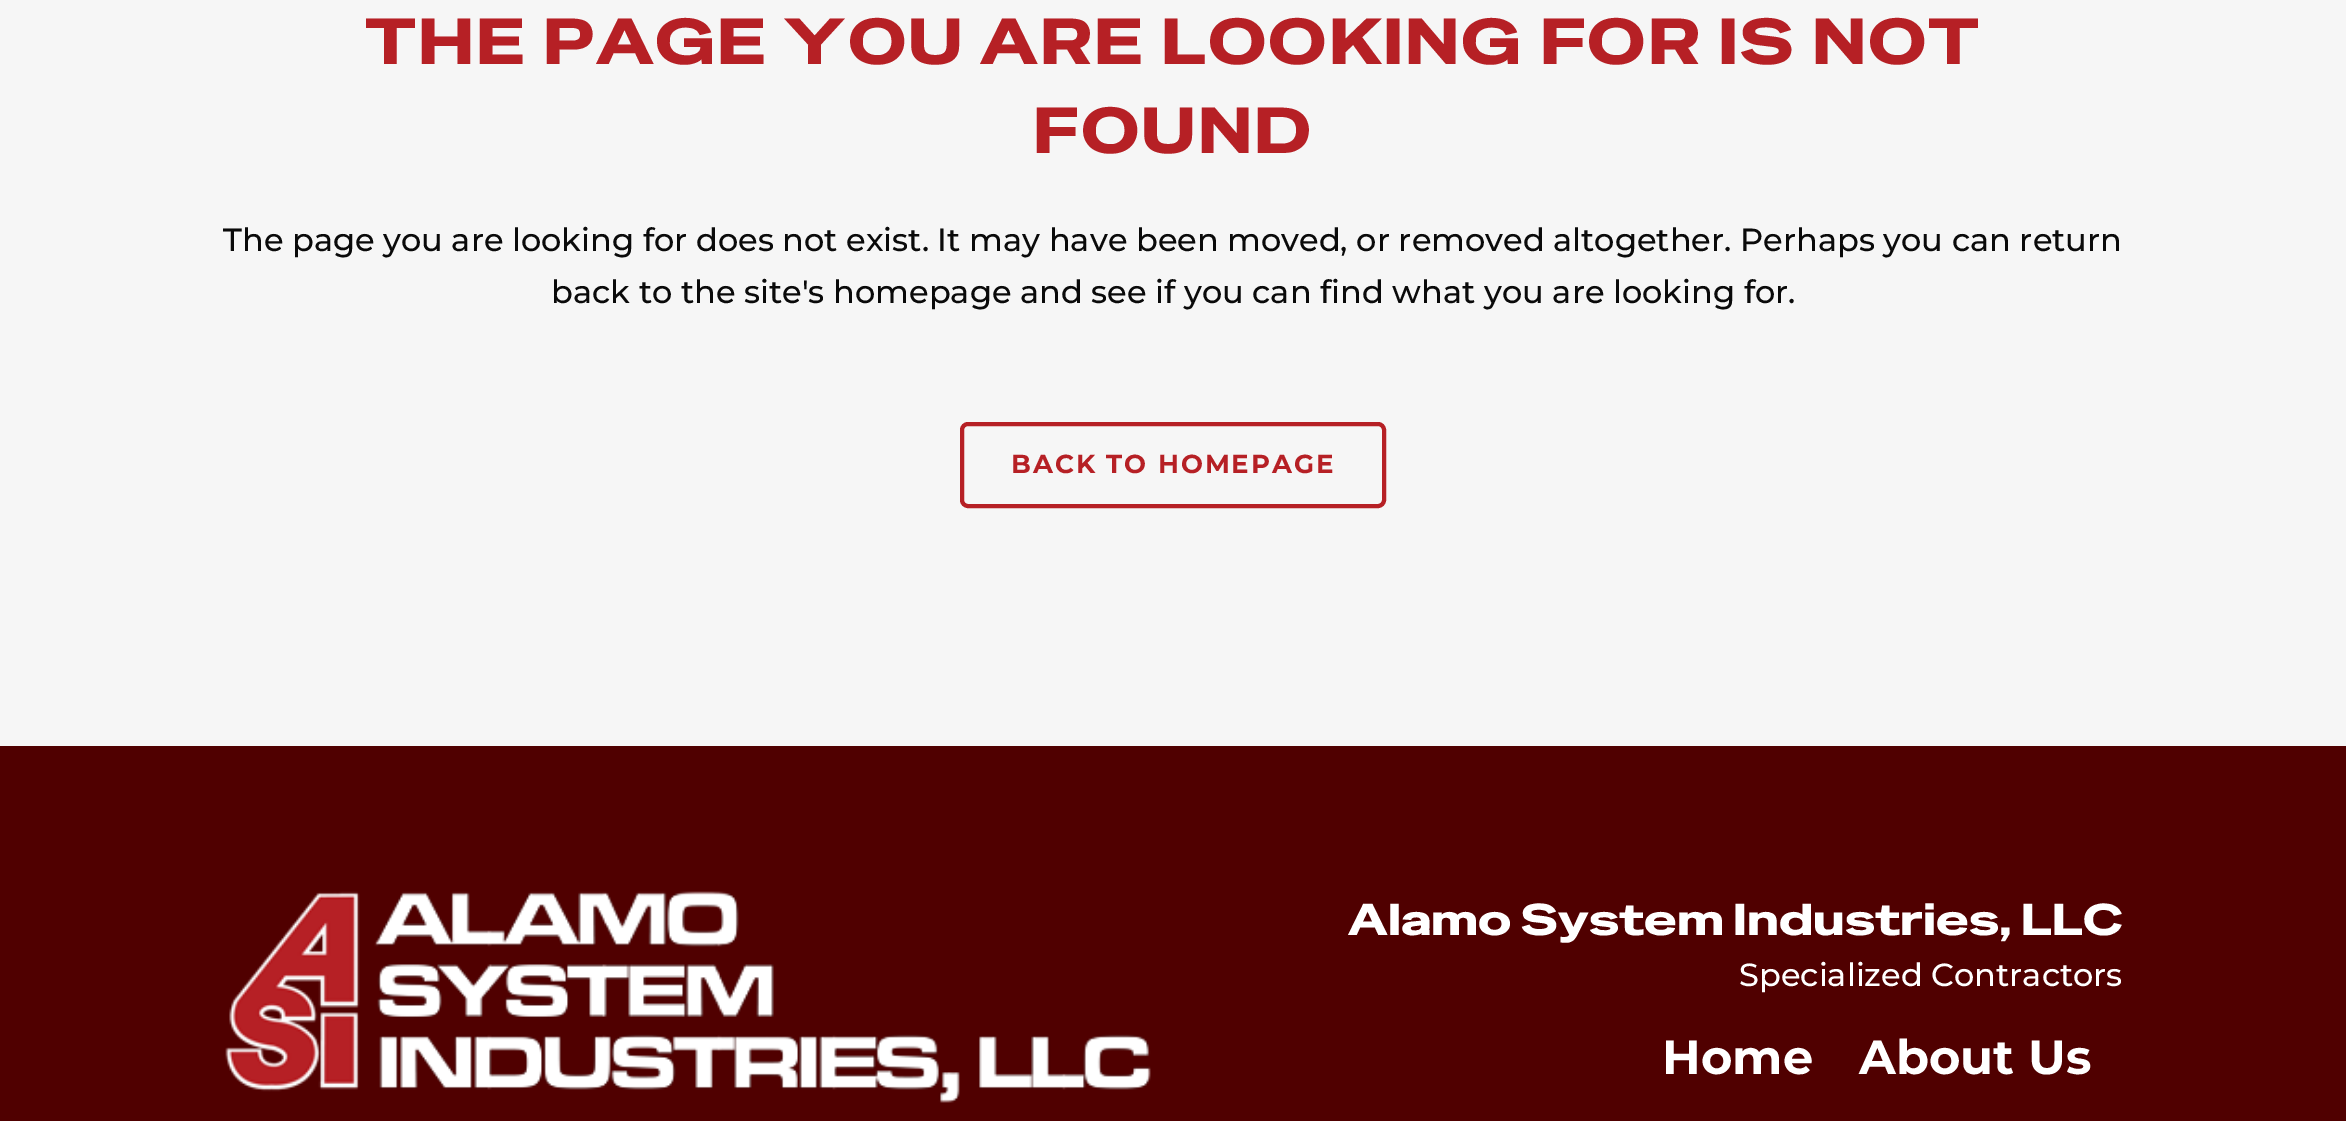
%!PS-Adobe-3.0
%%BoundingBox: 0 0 2346 1121
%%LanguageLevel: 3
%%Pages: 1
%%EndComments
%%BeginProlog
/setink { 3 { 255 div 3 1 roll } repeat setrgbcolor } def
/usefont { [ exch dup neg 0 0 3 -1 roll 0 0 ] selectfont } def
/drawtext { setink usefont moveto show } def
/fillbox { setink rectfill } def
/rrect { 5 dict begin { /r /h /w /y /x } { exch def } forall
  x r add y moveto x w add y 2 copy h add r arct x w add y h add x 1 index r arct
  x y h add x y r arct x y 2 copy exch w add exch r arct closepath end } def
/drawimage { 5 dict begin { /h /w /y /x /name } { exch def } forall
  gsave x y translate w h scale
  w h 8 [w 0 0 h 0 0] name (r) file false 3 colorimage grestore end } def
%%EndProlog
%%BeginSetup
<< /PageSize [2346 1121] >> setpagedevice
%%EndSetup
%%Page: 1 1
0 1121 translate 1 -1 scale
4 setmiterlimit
0 0 2346 1121 246 246 246 fillbox
/SpecialGothicExpandedOne-Regular 64 usefont
182 32 37 setink
365 64 moveto 2 0 (THE PAGE YOU ARE LOOKING FOR IS NOT) ashow
1033 153 moveto 2 0 (FOUND) ashow
(The page you are looking for does not exist. It may have been moved, or removed altogether. Perhaps you can return) 223 251 /Montserrat-Medium 32 10 10 10 drawtext
(back to the site's homepage and see if you can find what you are looking for.) 551 303 /Montserrat-Medium 32 10 10 10 drawtext
182 32 37 setink
4 setlinewidth
962 424 422 82 6 rrect stroke
/Montserrat-Bold 26 usefont
1011 473 moveto 2 0 (BACK TO HOMEPAGE) ashow
0 746 2346 375 80 0 0 fillbox
(assets/img1.rgb) 225 891 926 212 drawimage
(Alamo System Industries, LLC) 1348 935 /SpecialGothicExpandedOne-Regular 44 255 255 255 drawtext
(Specialized Contractors) 1739 986 /Montserrat-Medium 32 255 255 255 drawtext
(Home) 1662 1074 /Montserrat-Bold 48 255 255 255 drawtext
(About Us) 1859 1074 /Montserrat-Bold 48 255 255 255 drawtext
showpage
%%EOF
